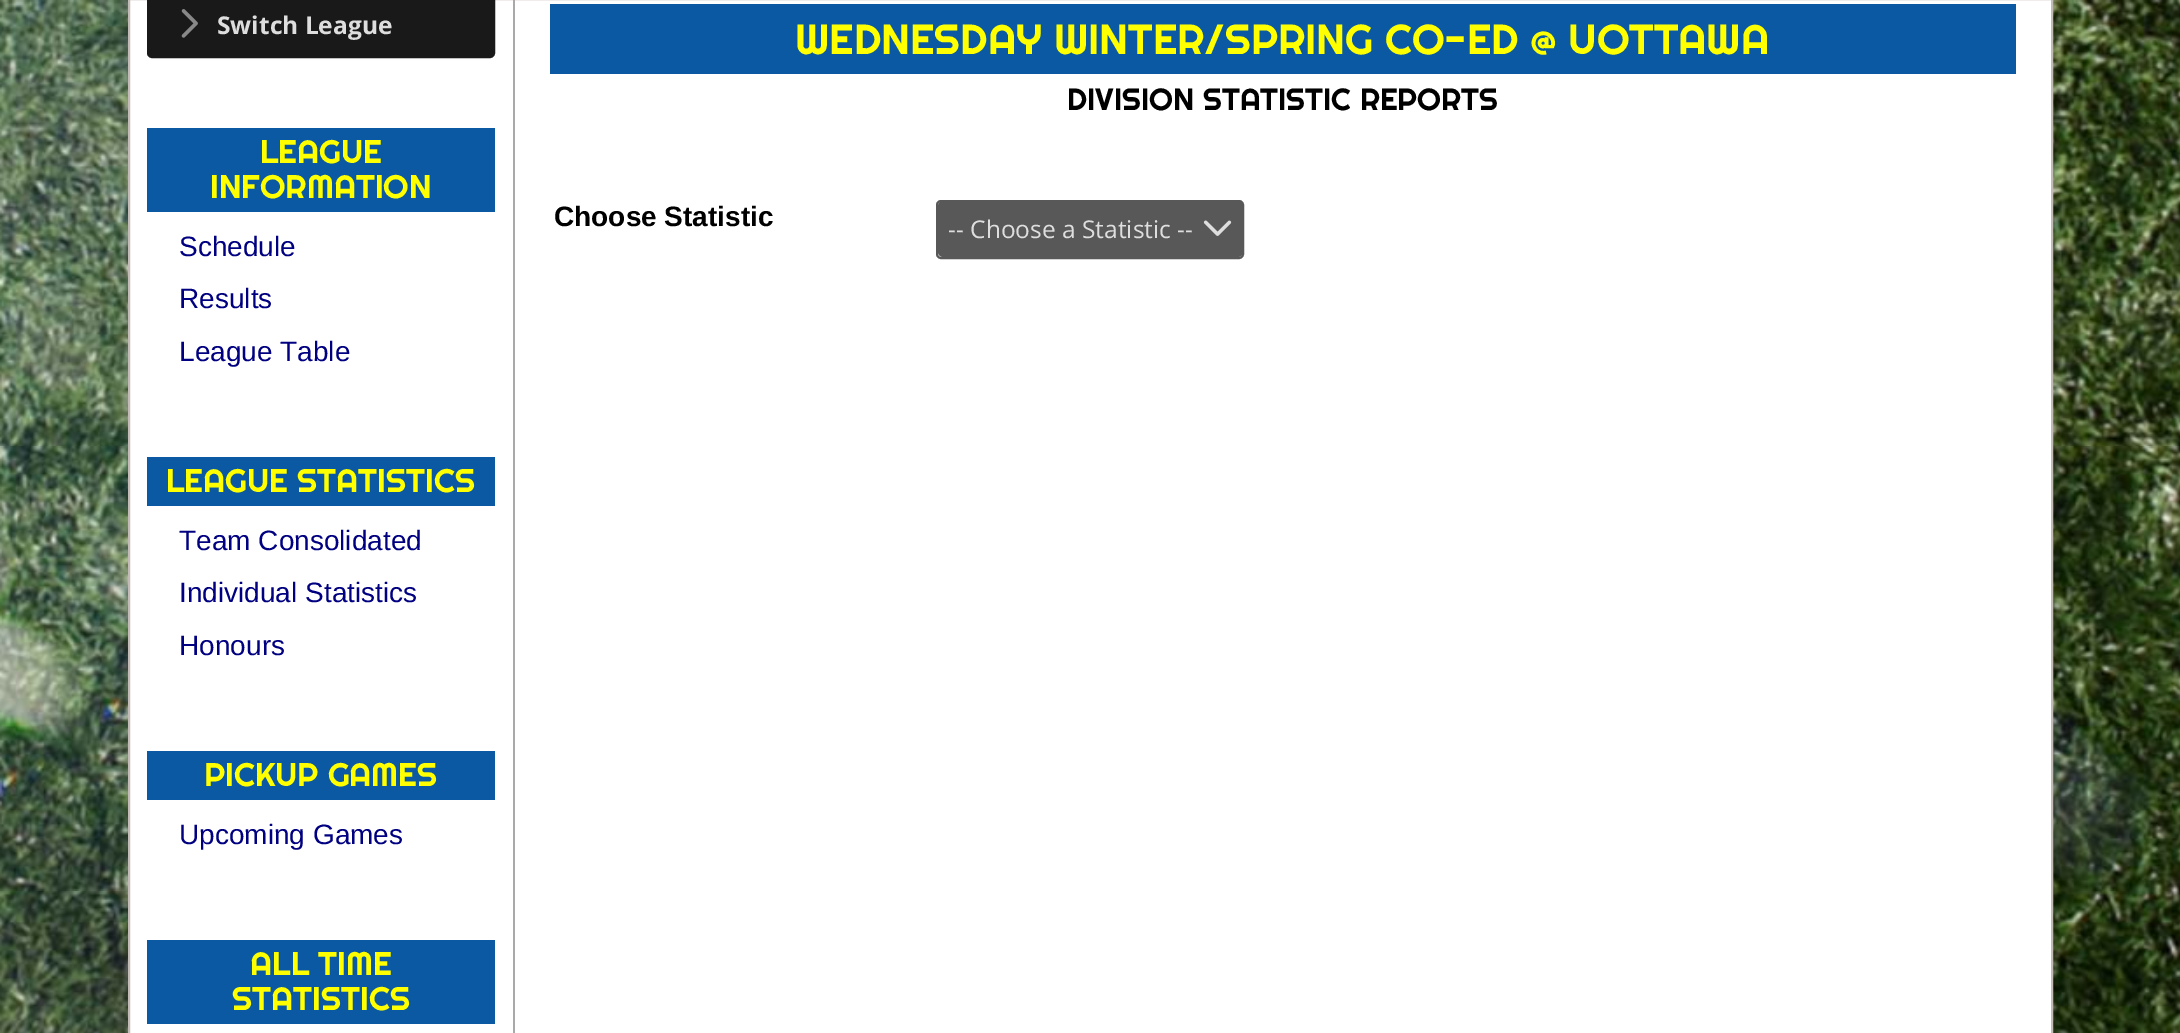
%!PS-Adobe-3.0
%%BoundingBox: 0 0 2180 1033
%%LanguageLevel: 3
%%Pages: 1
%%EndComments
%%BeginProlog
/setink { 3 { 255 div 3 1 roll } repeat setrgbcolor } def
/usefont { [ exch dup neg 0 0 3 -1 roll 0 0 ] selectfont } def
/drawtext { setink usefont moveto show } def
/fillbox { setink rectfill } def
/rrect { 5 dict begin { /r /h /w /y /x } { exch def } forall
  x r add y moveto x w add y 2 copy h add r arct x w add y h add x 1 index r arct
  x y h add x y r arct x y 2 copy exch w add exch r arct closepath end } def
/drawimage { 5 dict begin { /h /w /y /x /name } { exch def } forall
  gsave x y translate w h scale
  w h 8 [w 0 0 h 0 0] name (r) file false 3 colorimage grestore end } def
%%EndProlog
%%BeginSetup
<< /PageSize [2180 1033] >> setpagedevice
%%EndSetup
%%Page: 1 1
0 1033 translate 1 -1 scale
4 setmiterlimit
0 0 2180 1033 255 255 255 fillbox
(assets/img1.rgb) 0 0 2180 1033 drawimage
129 -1 moveto 2052 -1 lineto 2052 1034 lineto 129 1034 lineto closepath gsave fill grestore
195 187 182 setink
2 setlinewidth
stroke
513 0 2 1033 169 169 169 fillbox
25 25 25 setink
148 -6 346 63 4 rrect gsave fill grestore
stroke
(assets/img2.rgb) 181 9 17 29 drawimage
(Switch League) 217 34 /OpenSans-Bold 24.5 222 222 222 drawtext
147 128 348 84 11 89 162 fillbox
(LEAGUE) 260 163 /Righteous-Regular 32.75 255 255 0 drawtext
(INFORMATION) 210 198 /Righteous-Regular 32.75 255 255 0 drawtext
(Schedule) 179 256 /LiberationSans-Regular 28 0 0 128 drawtext
(Results) 179 308 /LiberationSans-Regular 28 0 0 128 drawtext
(League Table) 179 361 /LiberationSans-Regular 28 0 0 128 drawtext
147 457 348 49 11 89 162 fillbox
(LEAGUE STATISTICS) 166 492 /Righteous-Regular 32.75 255 255 0 drawtext
(Team Consolidated) 179 550 /LiberationSans-Regular 28 0 0 128 drawtext
(Individual Statistics) 179 602 /LiberationSans-Regular 28 0 0 128 drawtext
(Honours) 179 655 /LiberationSans-Regular 28 0 0 128 drawtext
147 751 348 49 11 89 162 fillbox
(PICKUP GAMES) 204 786 /Righteous-Regular 32.75 255 255 0 drawtext
(Upcoming Games) 179 844 /LiberationSans-Regular 28 0 0 128 drawtext
147 940 348 84 11 89 162 fillbox
(ALL TIME) 250 975 /Righteous-Regular 32.75 255 255 0 drawtext
(STATISTICS) 232 1010 /Righteous-Regular 32.75 255 255 0 drawtext
550 4 1466 70 11 89 162 fillbox
(WEDNESDAY WINTER/SPRING CO-ED @ UOTTAWA) 795 54 /Righteous-Regular 42 255 255 0 drawtext
(DIVISION STATISTIC REPORTS) 1067 110 /Righteous-Regular 30.75 0 0 0 drawtext
(Choose Statistic) 554 226 /LiberationSans-Bold 28 0 0 0 drawtext
88 88 88 setink
937 201 306 57 4 rrect stroke
938 201 266 56 5 rrect fill
(-- Choose a Statistic --) 948 238 /OpenSans-Regular 24.5 222 222 222 drawtext
88 88 88 setink
1194 201 49 56 5 rrect fill
(assets/img3.rgb) 1203 220 29 16 drawimage
showpage
%%EOF
